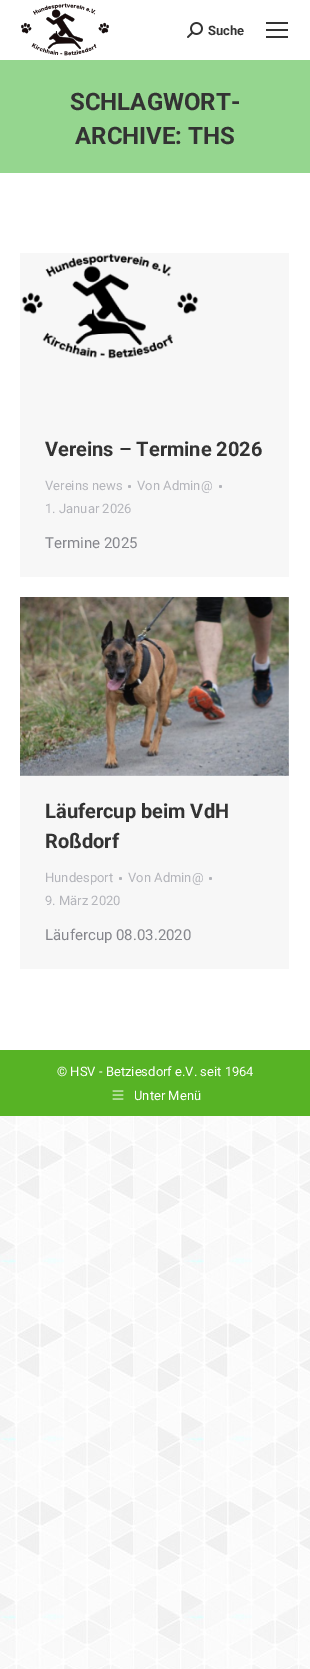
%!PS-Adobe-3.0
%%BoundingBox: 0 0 310 1669
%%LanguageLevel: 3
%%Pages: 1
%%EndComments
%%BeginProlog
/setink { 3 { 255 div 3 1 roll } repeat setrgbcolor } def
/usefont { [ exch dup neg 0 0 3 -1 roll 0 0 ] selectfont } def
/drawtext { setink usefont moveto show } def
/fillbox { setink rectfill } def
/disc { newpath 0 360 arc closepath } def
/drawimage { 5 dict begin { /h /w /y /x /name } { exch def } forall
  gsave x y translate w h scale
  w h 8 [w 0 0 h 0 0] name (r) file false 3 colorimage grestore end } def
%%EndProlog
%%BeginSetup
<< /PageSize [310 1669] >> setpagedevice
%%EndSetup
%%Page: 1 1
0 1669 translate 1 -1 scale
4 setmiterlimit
0 0 310 1669 255 255 255 fillbox
(assets/img1.rgb) 0 1116 310 553 drawimage
(assets/img2.rgb) 21 3 88 53 drawimage
(assets/img3.rgb) 187 22 16 16 drawimage
(Suche) 208 35 /Roboto-Bold 13 51 51 51 drawtext
266 22 22 2 51 51 51 fillbox
266 29 22 2 51 51 51 fillbox
266 36 22 2 51 51 51 fillbox
0 60 310 113 149 214 143 fillbox
(SCHLAGWORT-) 70 110 /Roboto-Bold 24 51 51 51 drawtext
(ARCHIVE: THS) 75 144 /Roboto-Bold 24 51 51 51 drawtext
20 253 269 324 247 247 247 fillbox
(assets/img4.rgb) 21 253 178 106 drawimage
(Vereins – Termine 2026) 45 456 /Roboto-Bold 20 51 51 51 drawtext
(Vereins news) 45 490 /Roboto-Regular 13 180 181 187 drawtext
129.5 486.5 1.5 disc fill
(Von Admin@) 137 490 /Roboto-Regular 13 180 181 187 drawtext
220.5 486.5 1.5 disc fill
(1. Januar 2026) 45 513 /Roboto-Regular 13 180 181 187 drawtext
(Termine 2025) 45 548 /Roboto-Regular 15 133 134 140 drawtext
20 597 269 372 247 247 247 fillbox
(assets/img5.rgb) 20 597 269 179 drawimage
(Läufercup beim VdH) 45 818 /Roboto-Bold 20 51 51 51 drawtext
(Roßdorf) 45 848 /Roboto-Bold 20 51 51 51 drawtext
(Hundesport) 45 882 /Roboto-Regular 13 180 181 187 drawtext
120.5 878.5 1.5 disc fill
(Von Admin@) 128 882 /Roboto-Regular 13 180 181 187 drawtext
210.5 878.5 1.5 disc fill
(9. März 2020) 45 905 /Roboto-Regular 13 180 181 187 drawtext
(Läufercup 08.03.2020) 45 940 /Roboto-Regular 15 133 134 140 drawtext
0 1050 310 66 87 179 37 fillbox
(© HSV - Betziesdorf e.V. seit 1964) 57 1076 /Roboto-Regular 13 255 255 255 drawtext
(assets/img6.rgb) 112 1090 12 10 drawimage
(Unter Menü) 134 1100 /Roboto-Regular 13 255 255 255 drawtext
showpage
%%EOF
